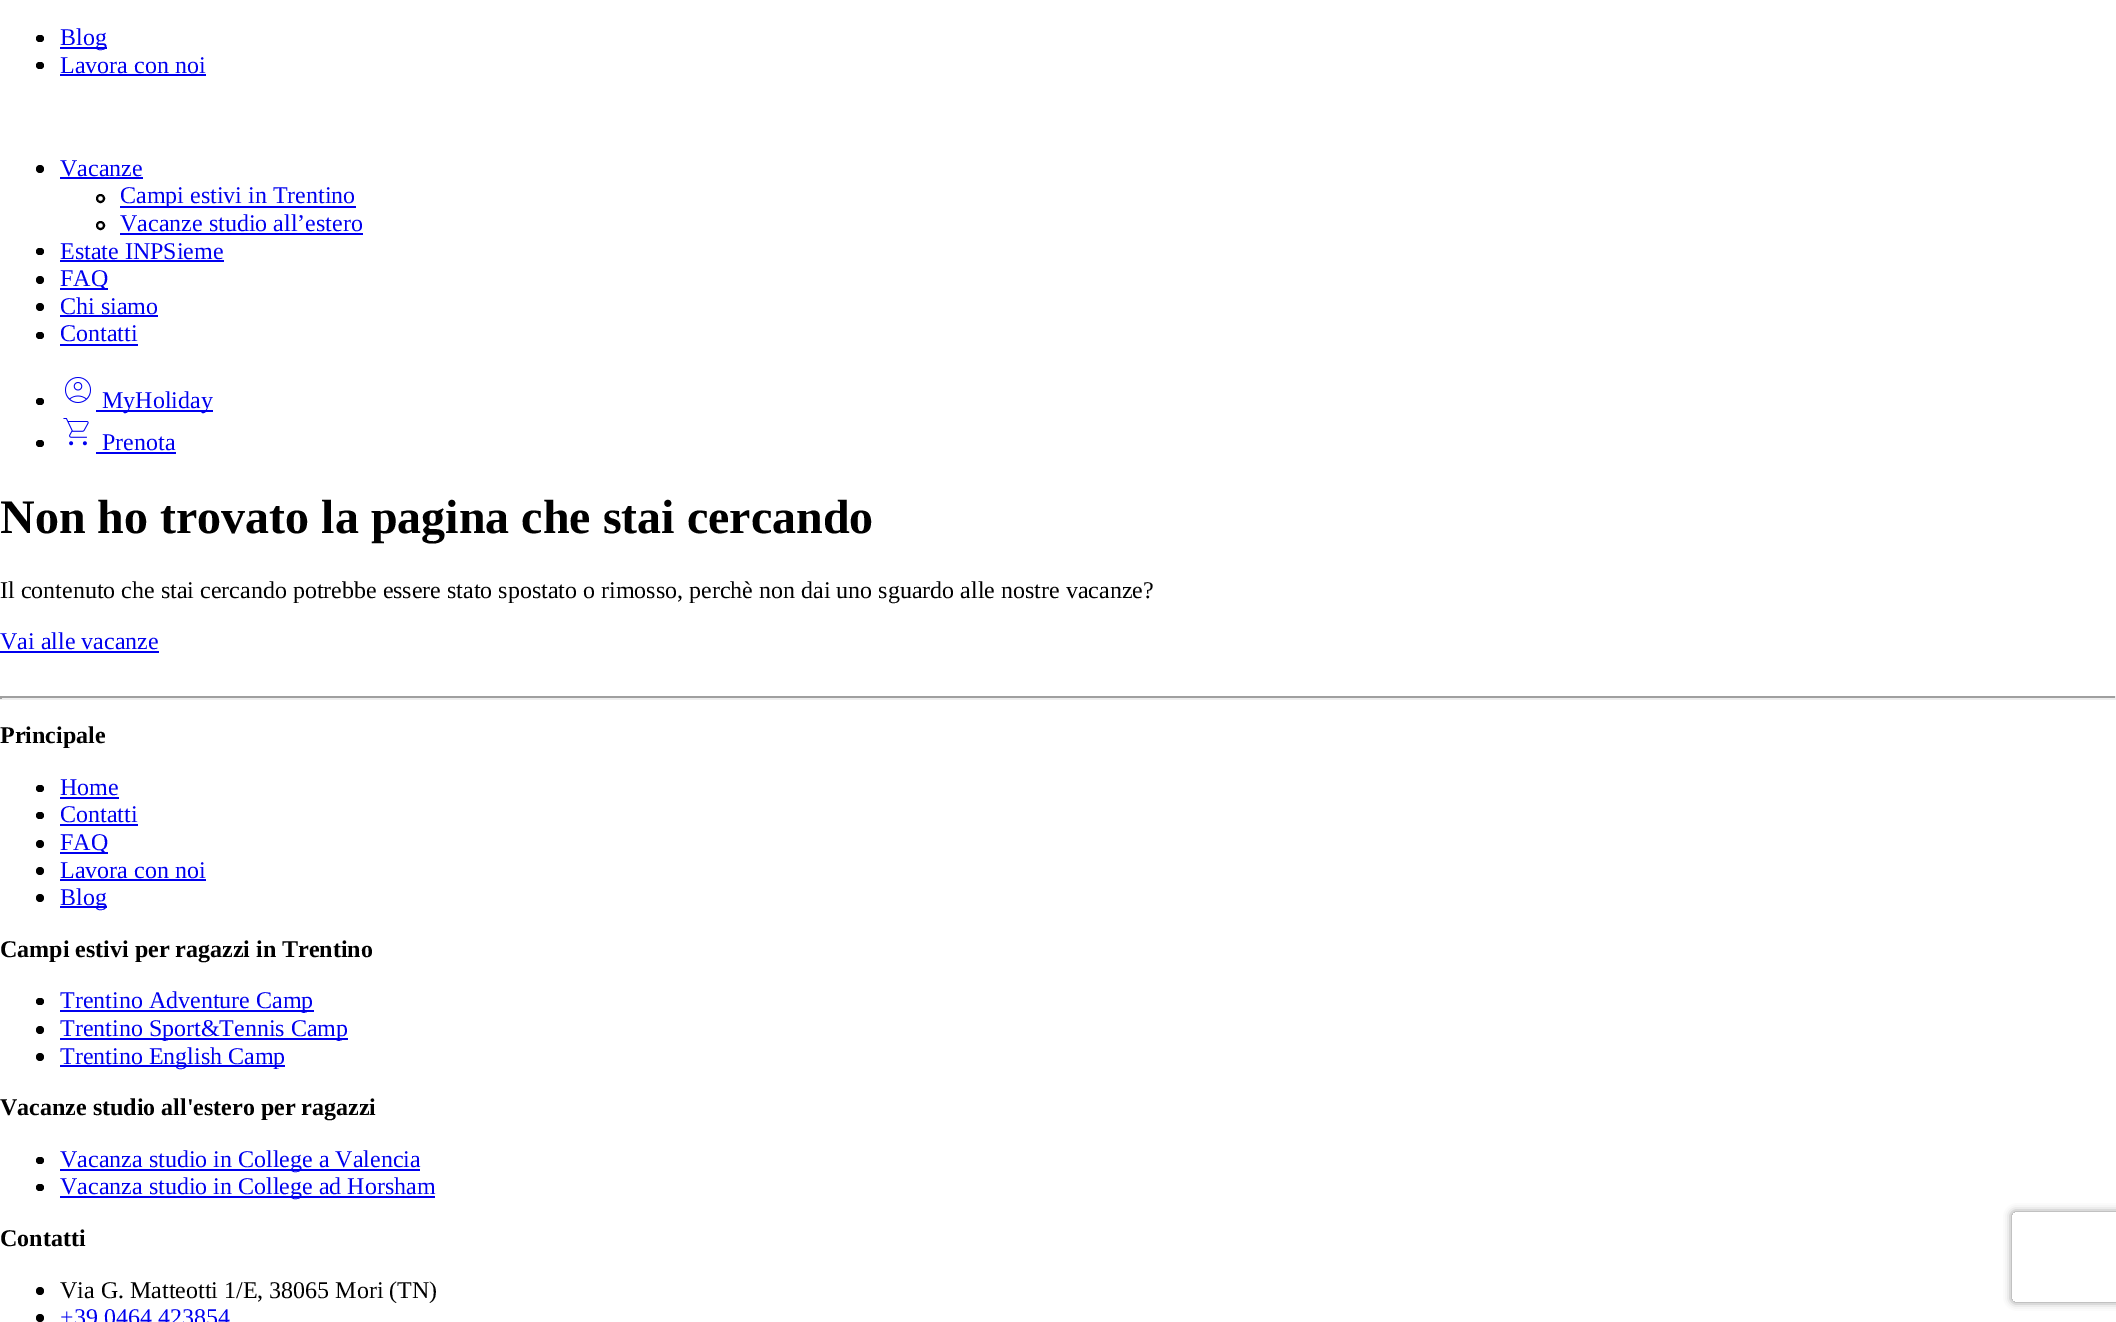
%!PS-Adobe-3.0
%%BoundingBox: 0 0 2116 1322
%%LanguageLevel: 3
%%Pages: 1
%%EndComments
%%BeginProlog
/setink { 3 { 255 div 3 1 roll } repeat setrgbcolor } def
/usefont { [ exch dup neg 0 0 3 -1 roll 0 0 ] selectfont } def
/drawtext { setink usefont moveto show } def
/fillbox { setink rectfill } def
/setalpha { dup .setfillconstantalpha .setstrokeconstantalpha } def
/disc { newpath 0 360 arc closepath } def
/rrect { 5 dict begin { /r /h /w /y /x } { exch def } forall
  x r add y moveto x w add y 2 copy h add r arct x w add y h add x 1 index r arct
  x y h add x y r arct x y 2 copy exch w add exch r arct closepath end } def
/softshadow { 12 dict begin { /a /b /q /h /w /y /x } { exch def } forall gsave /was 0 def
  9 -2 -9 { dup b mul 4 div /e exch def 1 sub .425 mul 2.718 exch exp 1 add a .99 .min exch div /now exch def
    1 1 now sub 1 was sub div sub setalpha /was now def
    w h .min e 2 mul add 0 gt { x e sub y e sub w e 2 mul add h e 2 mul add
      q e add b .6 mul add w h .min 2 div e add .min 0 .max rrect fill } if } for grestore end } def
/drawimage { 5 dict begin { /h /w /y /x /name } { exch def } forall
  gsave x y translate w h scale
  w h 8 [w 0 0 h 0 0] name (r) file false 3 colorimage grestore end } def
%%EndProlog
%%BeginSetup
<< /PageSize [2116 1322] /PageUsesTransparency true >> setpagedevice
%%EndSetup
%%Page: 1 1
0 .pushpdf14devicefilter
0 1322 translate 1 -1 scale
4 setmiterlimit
0 0 2116 1322 255 255 255 fillbox
0 0 0 setink
36 35 8 7 3.5 rrect fill
60 47 47 2 0 0 238 fillbox
(Blog) 60 45 /LiberationSerif-Regular 24 0 0 238 drawtext
0 0 0 setink
36 62 8 7 3.5 rrect fill
(Lavora con noi) 60 73 /LiberationSerif-Regular 24 0 0 238 drawtext
60 74 146 2 0 0 238 fillbox
0 0 0 setink
40 169 4 disc fill
(Vacanze) 60 176 /LiberationSerif-Regular 24 0 0 238 drawtext
60 177 83 2 0 0 238 fillbox
0 0 0 setink
2 setlinewidth
100.5 198.5 3.5 disc stroke
120 206 236 2 0 0 238 fillbox
(Campi estivi in Trentino) 120 203 /LiberationSerif-Regular 24 0 0 238 drawtext
0 0 0 setink
100.5 225.5 3.5 disc stroke
(Vacanze studio all’estero) 120 231 /LiberationSerif-Regular 24 0 0 238 drawtext
120 233 243 2 0 0 238 fillbox
0 0 0 setink
36 248 8 7 3.5 rrect fill
(Estate INPSieme) 60 259 /LiberationSerif-Regular 24 0 0 238 drawtext
60 260 164 2 0 0 238 fillbox
0 0 0 setink
40 280 4 disc fill
60 288 48 2 0 0 238 fillbox
(FAQ) 60 286 /LiberationSerif-Regular 24 0 0 238 drawtext
0 0 0 setink
40 307 4 disc fill
(Chi siamo) 60 314 /LiberationSerif-Regular 24 0 0 238 drawtext
60 315 98 2 0 0 238 fillbox
0 0 0 setink
36 332 8 7 3.5 rrect fill
(Contatti) 60 341 /LiberationSerif-Regular 24 0 0 238 drawtext
60 344 78 2 0 0 238 fillbox
0 0 0 setink
36 398 8 7 3.5 rrect fill
(assets/img1.rgb) 65 377 26 26 drawimage
96 410 117 2 0 0 238 fillbox
(MyHoliday) 102 408 /LiberationSerif-Regular 24 0 0 238 drawtext
0 0 0 setink
36 440 8 7 3.5 rrect fill
(assets/img2.rgb) 63 418 26 28 drawimage
(Prenota) 102 450 /LiberationSerif-Regular 24 0 0 238 drawtext
96 452 80 2 0 0 238 fillbox
(Non ho trovato la pagina che stai cercando) 0 533 /LiberationSerif-Bold 48 0 0 0 drawtext
(Il contenuto che stai cercando potrebbe essere stato spostato o rimosso, perchè non dai uno sguardo alle nostre vacanze?) 0 598 /LiberationSerif-Regular 24 0 0 0 drawtext
(Vai alle vacanze) 0 649 /LiberationSerif-Regular 24 0 0 238 drawtext
0 651 159 2 0 0 238 fillbox
0 696 2116 2 159 159 159 fillbox
2115 696 1 3 238 238 238 fillbox
0 698 2116 2 238 238 238 fillbox
0 696 2 3 159 159 159 fillbox
(Principale) 0 743 /LiberationSerif-Bold 24 0 0 0 drawtext
36 785 8 7 3.5 rrect fill
(Home) 60 795 /LiberationSerif-Regular 24 0 0 238 drawtext
60 797 59 2 0 0 238 fillbox
0 0 0 setink
36 812 8 7 3.5 rrect fill
(Contatti) 60 822 /LiberationSerif-Regular 24 0 0 238 drawtext
60 824 78 2 0 0 238 fillbox
0 0 0 setink
40 844 4 disc fill
60 852 48 2 0 0 238 fillbox
(FAQ) 60 850 /LiberationSerif-Regular 24 0 0 238 drawtext
0 0 0 setink
40 871 4 disc fill
(Lavora con noi) 60 878 /LiberationSerif-Regular 24 0 0 238 drawtext
60 879 146 2 0 0 238 fillbox
0 0 0 setink
40 898 4 disc fill
60 906 47 2 0 0 238 fillbox
(Blog) 60 905 /LiberationSerif-Regular 24 0 0 238 drawtext
(Campi estivi per ragazzi in Trentino) 0 957 /LiberationSerif-Bold 24 0 0 0 drawtext
36 998 8 7 3.5 rrect fill
60 1010 254 2 0 0 238 fillbox
(Trentino Adventure Camp) 60 1008 /LiberationSerif-Regular 24 0 0 238 drawtext
0 0 0 setink
40 1030 4 disc fill
60 1038 288 2 0 0 238 fillbox
(Trentino Sport&Tennis Camp) 60 1036 /LiberationSerif-Regular 24 0 0 238 drawtext
0 0 0 setink
40 1057 4 disc fill
60 1065 225 2 0 0 238 fillbox
(Trentino English Camp) 60 1064 /LiberationSerif-Regular 24 0 0 238 drawtext
(Vacanze studio all'estero per ragazzi) 0 1115 /LiberationSerif-Bold 24 0 0 0 drawtext
36 1157 8 7 3.5 rrect fill
60 1169 360 2 0 0 238 fillbox
(Vacanza studio in College a Valencia) 60 1167 /LiberationSerif-Regular 24 0 0 238 drawtext
0 0 0 setink
36 1184 8 7 3.5 rrect fill
60 1196 375 2 0 0 238 fillbox
(Vacanza studio in College ad Horsham) 60 1194 /LiberationSerif-Regular 24 0 0 238 drawtext
(Contatti) 0 1246 /LiberationSerif-Bold 24 0 0 0 drawtext
40 1291 4 disc fill
(Via G. Matteotti 1/E, 38065 Mori \(TN\)) 60 1298 /LiberationSerif-Regular 24 0 0 0 drawtext
40 1318 4 disc fill
(+39 0464 423854) 60 1325 /LiberationSerif-Regular 24 0 0 238 drawtext
gsave
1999 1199 moveto 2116 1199 lineto 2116 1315 lineto 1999 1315 lineto closepath 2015 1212 moveto 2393 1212 lineto 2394.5 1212 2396 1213.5 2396 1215 curveto 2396 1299 lineto 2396 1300.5 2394.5 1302 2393 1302 curveto 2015 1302 lineto 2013.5 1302 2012 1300.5 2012 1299 curveto 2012 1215 lineto 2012 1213.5 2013.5 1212 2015 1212 curveto closepath eoclip newpath
128 128 128 setink
2012 1212 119 90 3 4 1 softshadow
grestore
.poppdf14devicefilter showpage
%%EOF
